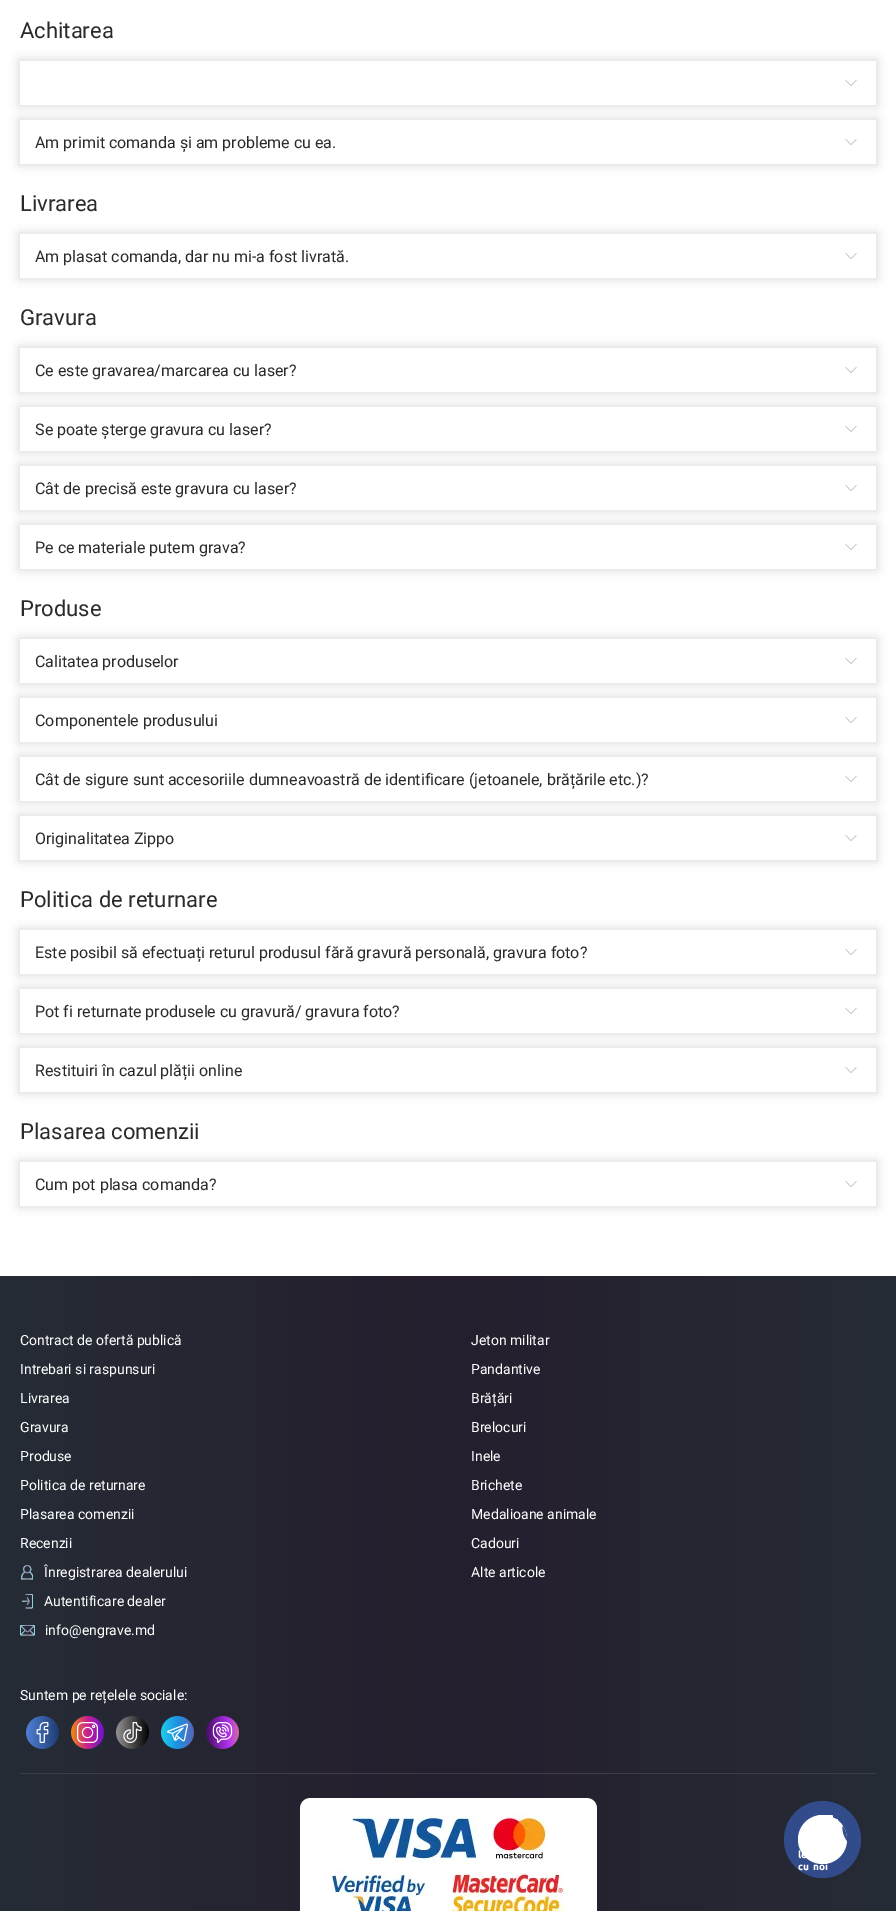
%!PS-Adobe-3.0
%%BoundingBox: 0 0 896 1911
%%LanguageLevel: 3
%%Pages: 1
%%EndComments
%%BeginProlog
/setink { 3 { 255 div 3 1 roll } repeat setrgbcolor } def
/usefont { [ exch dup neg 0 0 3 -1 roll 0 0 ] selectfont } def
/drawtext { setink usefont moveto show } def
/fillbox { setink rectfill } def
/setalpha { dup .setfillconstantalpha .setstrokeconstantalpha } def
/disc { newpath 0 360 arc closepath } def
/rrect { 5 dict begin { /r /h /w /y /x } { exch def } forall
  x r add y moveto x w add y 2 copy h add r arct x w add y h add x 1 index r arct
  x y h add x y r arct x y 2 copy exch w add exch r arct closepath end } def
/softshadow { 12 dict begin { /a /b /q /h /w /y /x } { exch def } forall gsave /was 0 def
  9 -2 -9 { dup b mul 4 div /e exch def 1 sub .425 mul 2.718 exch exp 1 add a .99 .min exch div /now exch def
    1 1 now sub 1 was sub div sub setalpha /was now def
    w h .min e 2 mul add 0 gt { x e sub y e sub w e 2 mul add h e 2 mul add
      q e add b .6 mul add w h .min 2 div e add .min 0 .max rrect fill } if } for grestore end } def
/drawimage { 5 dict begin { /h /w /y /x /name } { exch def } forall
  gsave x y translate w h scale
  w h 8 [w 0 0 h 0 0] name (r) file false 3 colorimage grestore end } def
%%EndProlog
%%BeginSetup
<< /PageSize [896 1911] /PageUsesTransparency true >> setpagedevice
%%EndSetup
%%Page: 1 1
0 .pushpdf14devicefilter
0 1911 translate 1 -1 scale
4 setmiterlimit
0 0 896 1911 255 255 255 fillbox
(Achitarea) 20 38 /Roboto-Regular 22 42 42 42 drawtext
gsave
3 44 moveto 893 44 lineto 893 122 lineto 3 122 lineto closepath 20 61 moveto 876 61 lineto 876 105 lineto 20 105 lineto closepath eoclip newpath
0 0 0 setink
19 60 858 46 0 5 0.15 softshadow
grestore
(assets/img1.rgb) 845 80 12 6 drawimage
gsave
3 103 moveto 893 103 lineto 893 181 lineto 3 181 lineto closepath 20 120 moveto 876 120 lineto 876 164 lineto 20 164 lineto closepath eoclip newpath
0 0 0 setink
19 119 858 46 0 5 0.15 softshadow
grestore
(Am primit comanda și am probleme cu ea.) 35 148 /Roboto-Regular 16 42 42 42 drawtext
(assets/img1.rgb) 845 139 12 6 drawimage
(Livrarea) 20 211 /Roboto-Regular 22 42 42 42 drawtext
gsave
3 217 moveto 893 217 lineto 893 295 lineto 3 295 lineto closepath 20 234 moveto 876 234 lineto 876 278 lineto 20 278 lineto closepath eoclip newpath
0 0 0 setink
19 233 858 46 0 5 0.15 softshadow
grestore
(Am plasat comanda, dar nu mi-a fost livrată.) 35 262 /Roboto-Regular 16 42 42 42 drawtext
(assets/img1.rgb) 845 253 12 6 drawimage
(Gravura) 20 325 /Roboto-Regular 22 42 42 42 drawtext
gsave
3 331 moveto 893 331 lineto 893 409 lineto 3 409 lineto closepath 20 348 moveto 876 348 lineto 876 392 lineto 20 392 lineto closepath eoclip newpath
0 0 0 setink
19 347 858 46 0 5 0.15 softshadow
grestore
(Ce este gravarea/marcarea cu laser?) 35 376 /Roboto-Regular 16 42 42 42 drawtext
(assets/img1.rgb) 845 367 12 6 drawimage
gsave
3 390 moveto 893 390 lineto 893 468 lineto 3 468 lineto closepath 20 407 moveto 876 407 lineto 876 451 lineto 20 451 lineto closepath eoclip newpath
0 0 0 setink
19 406 858 46 0 5 0.15 softshadow
grestore
(Se poate șterge gravura cu laser?) 35 435 /Roboto-Regular 16 42 42 42 drawtext
(assets/img1.rgb) 845 426 12 6 drawimage
gsave
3 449 moveto 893 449 lineto 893 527 lineto 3 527 lineto closepath 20 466 moveto 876 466 lineto 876 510 lineto 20 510 lineto closepath eoclip newpath
0 0 0 setink
19 465 858 46 0 5 0.15 softshadow
grestore
(Cât de precisă este gravura cu laser?) 35 494 /Roboto-Regular 16 42 42 42 drawtext
(assets/img1.rgb) 845 485 12 6 drawimage
gsave
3 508 moveto 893 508 lineto 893 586 lineto 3 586 lineto closepath 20 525 moveto 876 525 lineto 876 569 lineto 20 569 lineto closepath eoclip newpath
0 0 0 setink
19 524 858 46 0 5 0.15 softshadow
grestore
(Pe ce materiale putem grava?) 35 553 /Roboto-Regular 16 42 42 42 drawtext
(assets/img1.rgb) 845 544 12 6 drawimage
(Produse) 20 616 /Roboto-Regular 22 42 42 42 drawtext
gsave
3 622 moveto 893 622 lineto 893 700 lineto 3 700 lineto closepath 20 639 moveto 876 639 lineto 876 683 lineto 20 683 lineto closepath eoclip newpath
0 0 0 setink
19 638 858 46 0 5 0.15 softshadow
grestore
(Calitatea produselor) 35 667 /Roboto-Regular 16 42 42 42 drawtext
(assets/img1.rgb) 845 658 12 6 drawimage
gsave
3 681 moveto 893 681 lineto 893 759 lineto 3 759 lineto closepath 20 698 moveto 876 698 lineto 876 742 lineto 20 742 lineto closepath eoclip newpath
0 0 0 setink
19 697 858 46 0 5 0.15 softshadow
grestore
(Componentele produsului) 35 726 /Roboto-Regular 16 42 42 42 drawtext
(assets/img1.rgb) 845 717 12 6 drawimage
gsave
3 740 moveto 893 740 lineto 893 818 lineto 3 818 lineto closepath 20 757 moveto 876 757 lineto 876 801 lineto 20 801 lineto closepath eoclip newpath
0 0 0 setink
19 756 858 46 0 5 0.15 softshadow
grestore
(Cât de sigure sunt accesoriile dumneavoastră de identificare \(jetoanele, brățările etc.\)?) 35 785 /Roboto-Regular 16 42 42 42 drawtext
(assets/img1.rgb) 845 776 12 6 drawimage
gsave
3 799 moveto 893 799 lineto 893 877 lineto 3 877 lineto closepath 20 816 moveto 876 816 lineto 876 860 lineto 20 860 lineto closepath eoclip newpath
0 0 0 setink
19 815 858 46 0 5 0.15 softshadow
grestore
(Originalitatea Zippo) 35 844 /Roboto-Regular 16 42 42 42 drawtext
(assets/img1.rgb) 845 835 12 6 drawimage
(Politica de returnare) 20 907 /Roboto-Regular 22 42 42 42 drawtext
gsave
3 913 moveto 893 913 lineto 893 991 lineto 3 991 lineto closepath 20 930 moveto 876 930 lineto 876 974 lineto 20 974 lineto closepath eoclip newpath
0 0 0 setink
19 929 858 46 0 5 0.15 softshadow
grestore
(Este posibil să efectuați returul produsul fără gravură personală, gravura foto?) 35 958 /Roboto-Regular 16 42 42 42 drawtext
(assets/img1.rgb) 845 949 12 6 drawimage
gsave
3 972 moveto 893 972 lineto 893 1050 lineto 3 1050 lineto closepath 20 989 moveto 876 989 lineto 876 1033 lineto 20 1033 lineto closepath eoclip newpath
0 0 0 setink
19 988 858 46 0 5 0.15 softshadow
grestore
(Pot fi returnate produsele cu gravură/ gravura foto?) 35 1017 /Roboto-Regular 16 42 42 42 drawtext
(assets/img1.rgb) 845 1008 12 6 drawimage
gsave
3 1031 moveto 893 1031 lineto 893 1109 lineto 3 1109 lineto closepath 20 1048 moveto 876 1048 lineto 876 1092 lineto 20 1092 lineto closepath eoclip newpath
0 0 0 setink
19 1047 858 46 0 5 0.15 softshadow
grestore
(Restituiri în cazul plății online) 35 1076 /Roboto-Regular 16 42 42 42 drawtext
(assets/img1.rgb) 845 1067 12 6 drawimage
(Plasarea comenzii) 20 1139 /Roboto-Regular 22 42 42 42 drawtext
gsave
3 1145 moveto 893 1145 lineto 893 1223 lineto 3 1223 lineto closepath 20 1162 moveto 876 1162 lineto 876 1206 lineto 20 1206 lineto closepath eoclip newpath
0 0 0 setink
19 1161 858 46 0 5 0.15 softshadow
grestore
(Cum pot plasa comanda?) 35 1190 /Roboto-Regular 16 42 42 42 drawtext
(assets/img1.rgb) 845 1181 12 6 drawimage
gsave 0 1276 moveto 896 1276 lineto 896 1911 lineto 0 1911 lineto closepath clip newpath
<< /ShadingType 2 /ColorSpace /DeviceRGB /Coords [-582 1697 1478 1697] /Extend [true true] /Function << /FunctionType 3 /Domain [0 1] /Functions [<< /FunctionType 2 /Domain [0 1] /C0 [0.141 0.243 0.247] /C1 [0.145 0.118 0.18] /N 1 >> << /FunctionType 2 /Domain [0 1] /C0 [0.145 0.118 0.18] /C1 [0.141 0.243 0.247] /N 1 >>] /Bounds [0.5] /Encode [0 1 0 1] >> >> shfill grestore
(Contract de ofertă publică) 20 1345 /Roboto-Regular 14 255 255 255 drawtext
(Intrebari si raspunsuri) 20 1374 /Roboto-Regular 14 255 255 255 drawtext
(Livrarea) 20 1403 /Roboto-Regular 14 255 255 255 drawtext
(Gravura) 20 1432 /Roboto-Regular 14 255 255 255 drawtext
(Produse) 20 1461 /Roboto-Regular 14 255 255 255 drawtext
(Politica de returnare) 20 1490 /Roboto-Regular 14 255 255 255 drawtext
(Plasarea comenzii) 20 1519 /Roboto-Regular 14 255 255 255 drawtext
(Recenzii) 20 1548 /Roboto-Regular 14 255 255 255 drawtext
(assets/img2.rgb) 21 1565 12 15 drawimage
(Înregistrarea dealerului) 44 1577 /Roboto-Regular 14 255 255 255 drawtext
(assets/img3.rgb) 22 1594 11 15 drawimage
(Autentificare dealer) 44 1606 /Roboto-Regular 14 255 255 255 drawtext
(Jeton militar) 471 1345 /Roboto-Regular 14 255 255 255 drawtext
(Pandantive) 471 1374 /Roboto-Regular 14 255 255 255 drawtext
(Brățări) 471 1403 /Roboto-Regular 14 255 255 255 drawtext
(Brelocuri) 471 1432 /Roboto-Regular 14 255 255 255 drawtext
(Inele) 471 1461 /Roboto-Regular 14 255 255 255 drawtext
(Brichete) 471 1490 /Roboto-Regular 14 255 255 255 drawtext
(Medalioane animale) 471 1519 /Roboto-Regular 14 255 255 255 drawtext
(Cadouri) 471 1548 /Roboto-Regular 14 255 255 255 drawtext
(Alte articole) 471 1577 /Roboto-Regular 14 255 255 255 drawtext
(assets/img4.rgb) 20 1625 15 11 drawimage
(info@engrave.md) 45 1635 /Roboto-Regular 14 255 255 255 drawtext
(Suntem pe rețelele sociale:) 20 1700 /Roboto-Regular 14 255 255 255 drawtext
(assets/img5.rgb) 26 1716 33 33 drawimage
(assets/img6.rgb) 71 1716 33 33 drawimage
(assets/img7.rgb) 116 1716 33 33 drawimage
(assets/img8.rgb) 161 1716 33 33 drawimage
(assets/img9.rgb) 206 1716 33 33 drawimage
20 1773 856 1 63 59 72 fillbox
(assets/img10.rgb) 300 1798 297 113 drawimage
50 75 138 setink
822.5 1839.5 38.5 disc fill
(assets/img12.rgb) 818 1815 20 6 drawimage
255 255 255 setink
822.5 1839.5 24.5 disc fill
(assets/img11.rgb) 842 1826 5 15 drawimage
(le) 798 1858 /Ubuntu-ExtraBold 10 255 255 255 drawtext
798 1870 moveto 2 0 32 (cu noi) widthshow
.poppdf14devicefilter showpage
%%EOF
